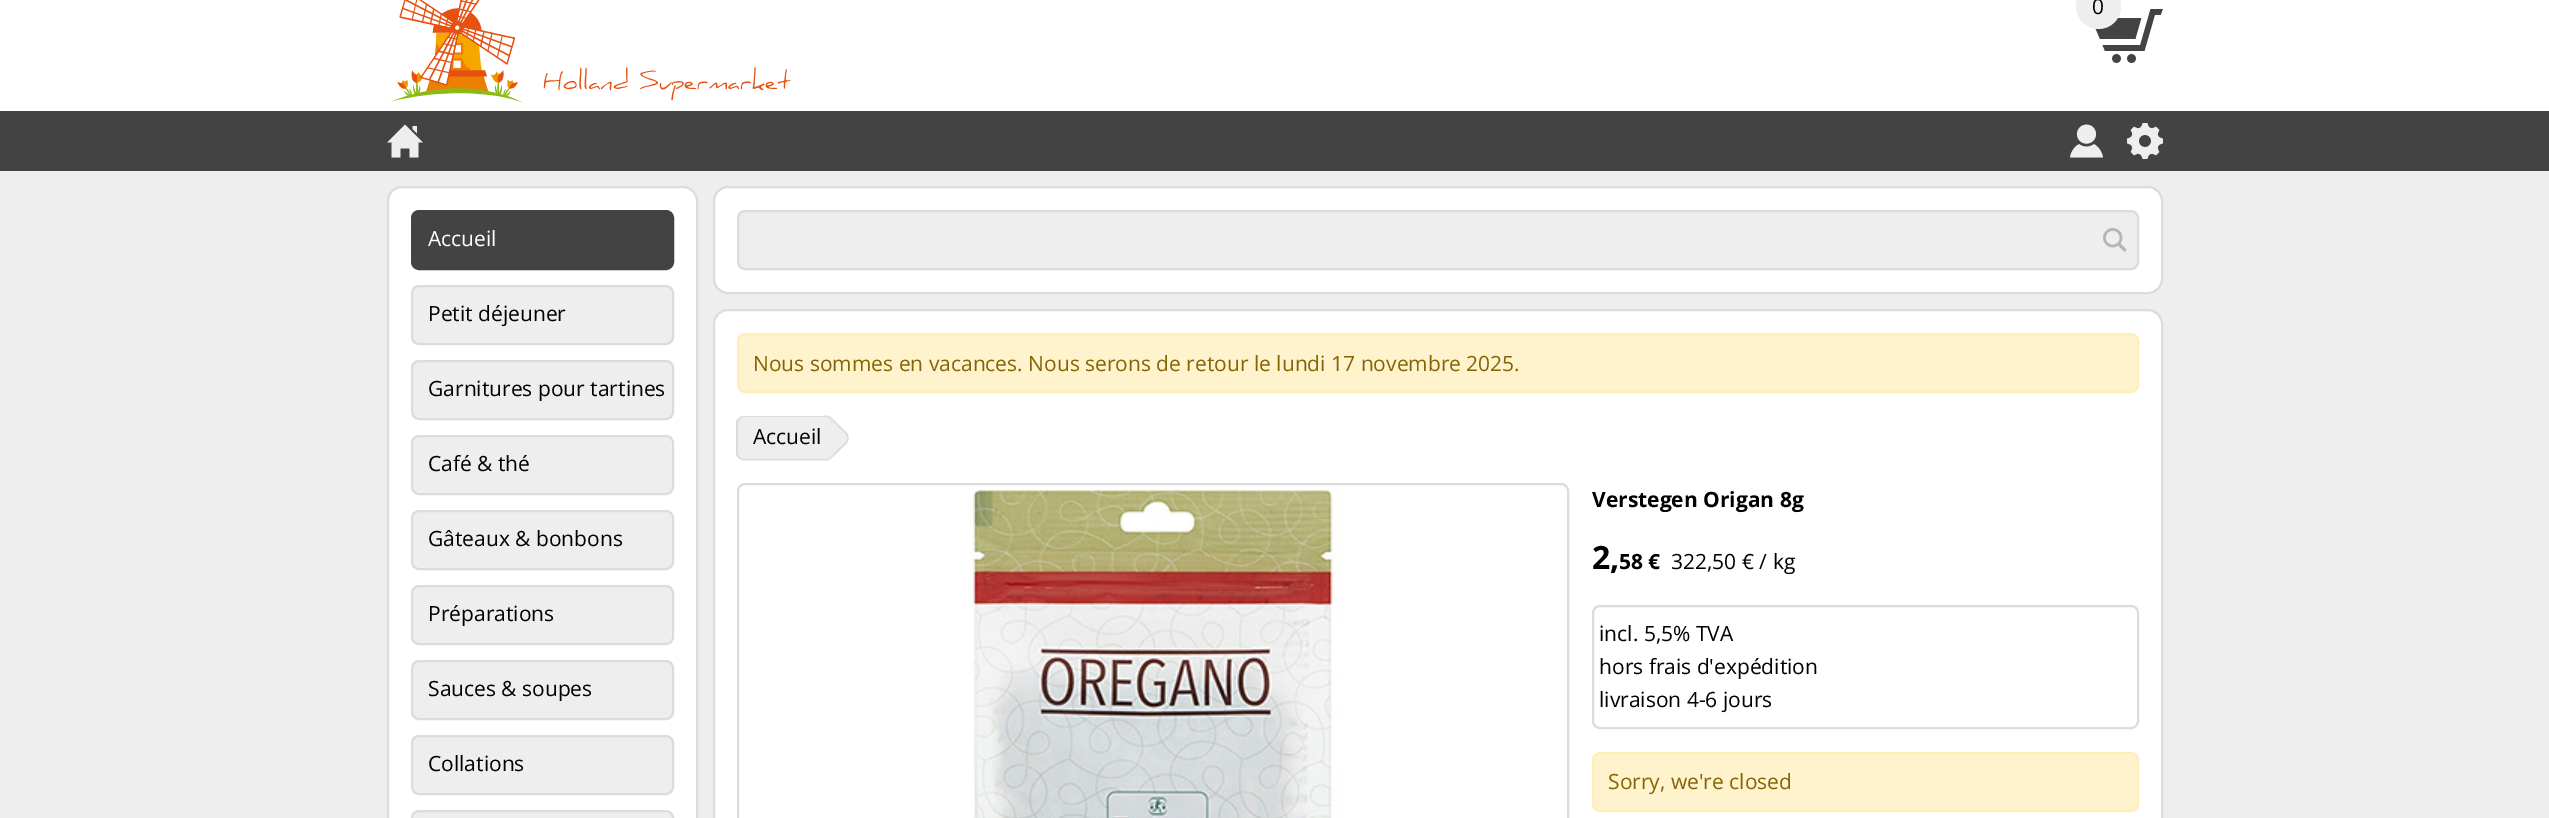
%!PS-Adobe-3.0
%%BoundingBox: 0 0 2549 818
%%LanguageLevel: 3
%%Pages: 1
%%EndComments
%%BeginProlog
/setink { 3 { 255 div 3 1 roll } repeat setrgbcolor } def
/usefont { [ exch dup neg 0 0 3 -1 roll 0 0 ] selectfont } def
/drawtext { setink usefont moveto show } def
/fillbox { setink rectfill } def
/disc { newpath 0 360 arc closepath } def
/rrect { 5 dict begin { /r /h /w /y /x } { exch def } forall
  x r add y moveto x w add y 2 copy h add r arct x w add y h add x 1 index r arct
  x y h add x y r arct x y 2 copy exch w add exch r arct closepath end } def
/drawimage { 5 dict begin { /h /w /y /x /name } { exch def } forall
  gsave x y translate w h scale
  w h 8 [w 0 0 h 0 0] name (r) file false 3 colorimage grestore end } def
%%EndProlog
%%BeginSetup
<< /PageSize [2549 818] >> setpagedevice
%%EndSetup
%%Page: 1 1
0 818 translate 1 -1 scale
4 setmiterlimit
0 0 2549 818 255 255 255 fillbox
(assets/img1.rgb) 388 0 403 103 drawimage
(assets/img2.rgb) 2095 9 68 54 drawimage
238 238 238 setink
2098.5 6.5 22.5 disc fill
(0) 2092 14 /OpenSans-Regular 21 0 0 0 drawtext
0 111 2549 60 67 67 67 fillbox
(assets/img3.rgb) 387 124 36 34 drawimage
(assets/img4.rgb) 2070 124 33 34 drawimage
(assets/img5.rgb) 2127 123 36 36 drawimage
0 171 2549 647 238 238 238 fillbox
255 255 255 setink
388 187 309 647 14 rrect gsave fill grestore
220 220 220 setink
2 setlinewidth
stroke
67 67 67 setink
412 211 261 58 7 rrect gsave fill grestore
stroke
(Accueil) 428 246 /OpenSans-Regular 21 255 255 255 drawtext
238 238 238 setink
412 286 261 58 7 rrect gsave fill grestore
220 220 220 setink
stroke
(Petit déjeuner) 428 321 /OpenSans-Regular 21 0 0 0 drawtext
238 238 238 setink
412 361 261 58 7 rrect gsave fill grestore
220 220 220 setink
stroke
(Garnitures pour tartines) 428 396 /OpenSans-Regular 21 0 0 0 drawtext
238 238 238 setink
412 436 261 58 7 rrect gsave fill grestore
220 220 220 setink
stroke
(Café & thé) 428 471 /OpenSans-Regular 21 0 0 0 drawtext
238 238 238 setink
412 511 261 58 7 rrect gsave fill grestore
220 220 220 setink
stroke
(Gâteaux & bonbons) 428 546 /OpenSans-Regular 21 0 0 0 drawtext
238 238 238 setink
412 586 261 58 7 rrect gsave fill grestore
220 220 220 setink
stroke
(Préparations) 428 621 /OpenSans-Regular 21 0 0 0 drawtext
238 238 238 setink
412 661 261 58 7 rrect gsave fill grestore
220 220 220 setink
stroke
(Sauces & soupes) 428 696 /OpenSans-Regular 21 0 0 0 drawtext
238 238 238 setink
412 736 261 58 7 rrect gsave fill grestore
220 220 220 setink
stroke
(Collations) 428 771 /OpenSans-Regular 21 0 0 0 drawtext
238 238 238 setink
412 811 261 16 7 rrect gsave fill grestore
220 220 220 setink
stroke
255 255 255 setink
714 187 1448 106 14 rrect gsave fill grestore
220 220 220 setink
stroke
238 238 238 setink
738 211 1400 58 7 rrect gsave fill grestore
220 220 220 setink
stroke
(assets/img6.rgb) 2103 228 24 24 drawimage
255 255 255 setink
714 310 1448 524 14 rrect gsave fill grestore
220 220 220 setink
stroke
255 243 205 setink
738 334 1400 58 7 rrect gsave fill grestore
255 238 186 setink
stroke
(Nous sommes en vacances. Nous serons de retour le lundi 17 novembre 2025.) 753 371 /OpenSans-Regular 21 133 100 4 drawtext
238 238 238 setink
831 418 moveto 841 428 lineto 845 432 851 436 847 442 curveto 839 451 lineto 826 464 826 464 813 451 curveto 806 443 799 440 808 430 curveto 821 418 lineto 824 415 829 415 831 418 curveto closepath fill
220 220 220 setink
1.5 setlinewidth
831 418.5 moveto 846 433 lineto 848.5 436 848.5 440 846 443 curveto 831 457.5 lineto 828.5 460.5 824 460.5 821.5 457.5 curveto 806.5 443 lineto 804 440 804 436 806.5 433 curveto 821.5 418.5 lineto 824 415.5 828.5 415.5 831 418.5 curveto closepath stroke
238 238 238 setink
737 416 96 45 8 rrect fill
220 220 220 setink
744 416 moveto 825 416 lineto 829 416 832 419 832 423 curveto 832 453 lineto 832 457 829 460 825 460 curveto 744 460 lineto 740 460 736 457 736 453 curveto 736 423 lineto 736 419 740 416 744 416 curveto closepath 744 417 moveto 825 417 lineto 829 417 832 420 832 423 curveto 832 453 lineto 832 456 829 459 825 459 curveto 744 459 lineto 741 459 738 456 738 453 curveto 738 423 lineto 738 420 741 417 744 417 curveto closepath eofill
(Accueil) 753 444 /OpenSans-Regular 21 0 0 0 drawtext
220 220 220 setink
2 setlinewidth
738 484 830 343 7 rrect stroke
(assets/img7.rgb) 970 490 372 328 drawimage
(Verstegen Origan 8g) 1592 507 /OpenSans-Bold 21 0 0 0 drawtext
(2,) 1592 569 /OpenSans-Bold 32 0 0 0 drawtext
(58 €) 1619 569 /OpenSans-Bold 21 0 0 0 drawtext
(322,50 € / kg) 1671 569 /OpenSans-Regular 21 0 0 0 drawtext
220 220 220 setink
1593 606 545 122 7 rrect stroke
(incl. 5,5% TVA) 1599 641 /OpenSans-Regular 21 0 0 0 drawtext
(hors frais d'expédition) 1599 674 /OpenSans-Regular 21 0 0 0 drawtext
(livraison 4-6 jours) 1599 707 /OpenSans-Regular 21 0 0 0 drawtext
255 243 205 setink
1593 753 545 58 7 rrect gsave fill grestore
255 238 186 setink
stroke
(Sorry, we're closed) 1608 789 /OpenSans-Regular 21 133 100 4 drawtext
showpage
%%EOF
